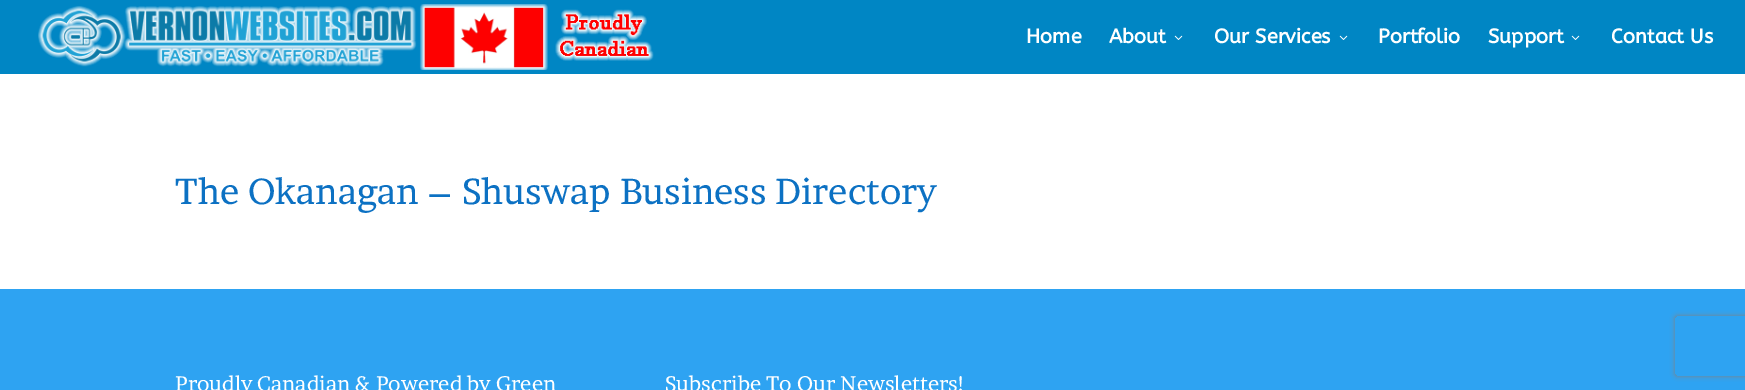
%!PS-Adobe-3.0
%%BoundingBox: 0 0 1745 390
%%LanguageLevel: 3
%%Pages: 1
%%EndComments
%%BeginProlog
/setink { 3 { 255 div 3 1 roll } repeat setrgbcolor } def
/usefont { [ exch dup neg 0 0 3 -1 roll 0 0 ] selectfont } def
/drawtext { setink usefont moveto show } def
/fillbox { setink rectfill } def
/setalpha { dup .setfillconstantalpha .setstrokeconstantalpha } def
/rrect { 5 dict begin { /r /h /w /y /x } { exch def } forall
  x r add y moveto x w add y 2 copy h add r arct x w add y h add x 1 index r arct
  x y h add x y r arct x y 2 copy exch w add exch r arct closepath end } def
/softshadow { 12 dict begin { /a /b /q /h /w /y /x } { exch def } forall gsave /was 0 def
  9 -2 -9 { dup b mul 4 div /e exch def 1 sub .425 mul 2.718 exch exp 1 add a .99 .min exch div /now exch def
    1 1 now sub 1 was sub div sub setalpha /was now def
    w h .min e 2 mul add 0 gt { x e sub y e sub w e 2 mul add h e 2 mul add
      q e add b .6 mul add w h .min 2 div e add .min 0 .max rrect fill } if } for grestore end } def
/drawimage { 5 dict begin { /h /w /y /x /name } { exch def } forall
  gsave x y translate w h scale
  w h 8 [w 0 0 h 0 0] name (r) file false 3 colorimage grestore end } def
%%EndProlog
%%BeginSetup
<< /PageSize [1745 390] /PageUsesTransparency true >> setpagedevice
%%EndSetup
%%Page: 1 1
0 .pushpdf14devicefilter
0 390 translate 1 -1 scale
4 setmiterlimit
0 0 1745 390 46 163 242 fillbox
0 0 1745 74 0 134 196 fillbox
(assets/img1.rgb) 38 4 616 66 drawimage
(Home) 1026 43 /ABeeZee-Bold 20 255 255 255 drawtext
(About) 1109 43 /ABeeZee-Bold 20 255 255 255 drawtext
(assets/img2.rgb) 1174 35 9 5 drawimage
(Our Services) 1214 43 /ABeeZee-Bold 20 255 255 255 drawtext
(assets/img2.rgb) 1339 35 9 5 drawimage
(Portfolio) 1378 43 /ABeeZee-Bold 20 255 255 255 drawtext
(Support) 1488 43 /ABeeZee-Bold 20 255 255 255 drawtext
(assets/img2.rgb) 1571 35 9 5 drawimage
(Contact Us) 1611 43 /ABeeZee-Bold 20 255 255 255 drawtext
0 74 1745 215 255 255 255 fillbox
(The Okanagan – Shuswap Business Directory) 175 204 /Brawler-Regular 36 12 113 195 drawtext
(Proudly Canadian & Powered by Green) 175 391 /Brawler-Regular 21 255 255 255 drawtext
(Subscribe To Our Newsletters!) 665 391 /Brawler-Regular 21 255 255 255 drawtext
gsave
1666 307 moveto 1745 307 lineto 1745 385 lineto 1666 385 lineto closepath 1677 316 moveto 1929 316 lineto 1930 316 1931 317 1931 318 curveto 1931 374 lineto 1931 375 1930 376 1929 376 curveto 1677 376 lineto 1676 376 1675 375 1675 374 curveto 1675 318 lineto 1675 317 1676 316 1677 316 curveto closepath eoclip newpath
128 128 128 setink
1675 316 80 60 2 2.5 1 softshadow
grestore
.poppdf14devicefilter showpage
%%EOF
